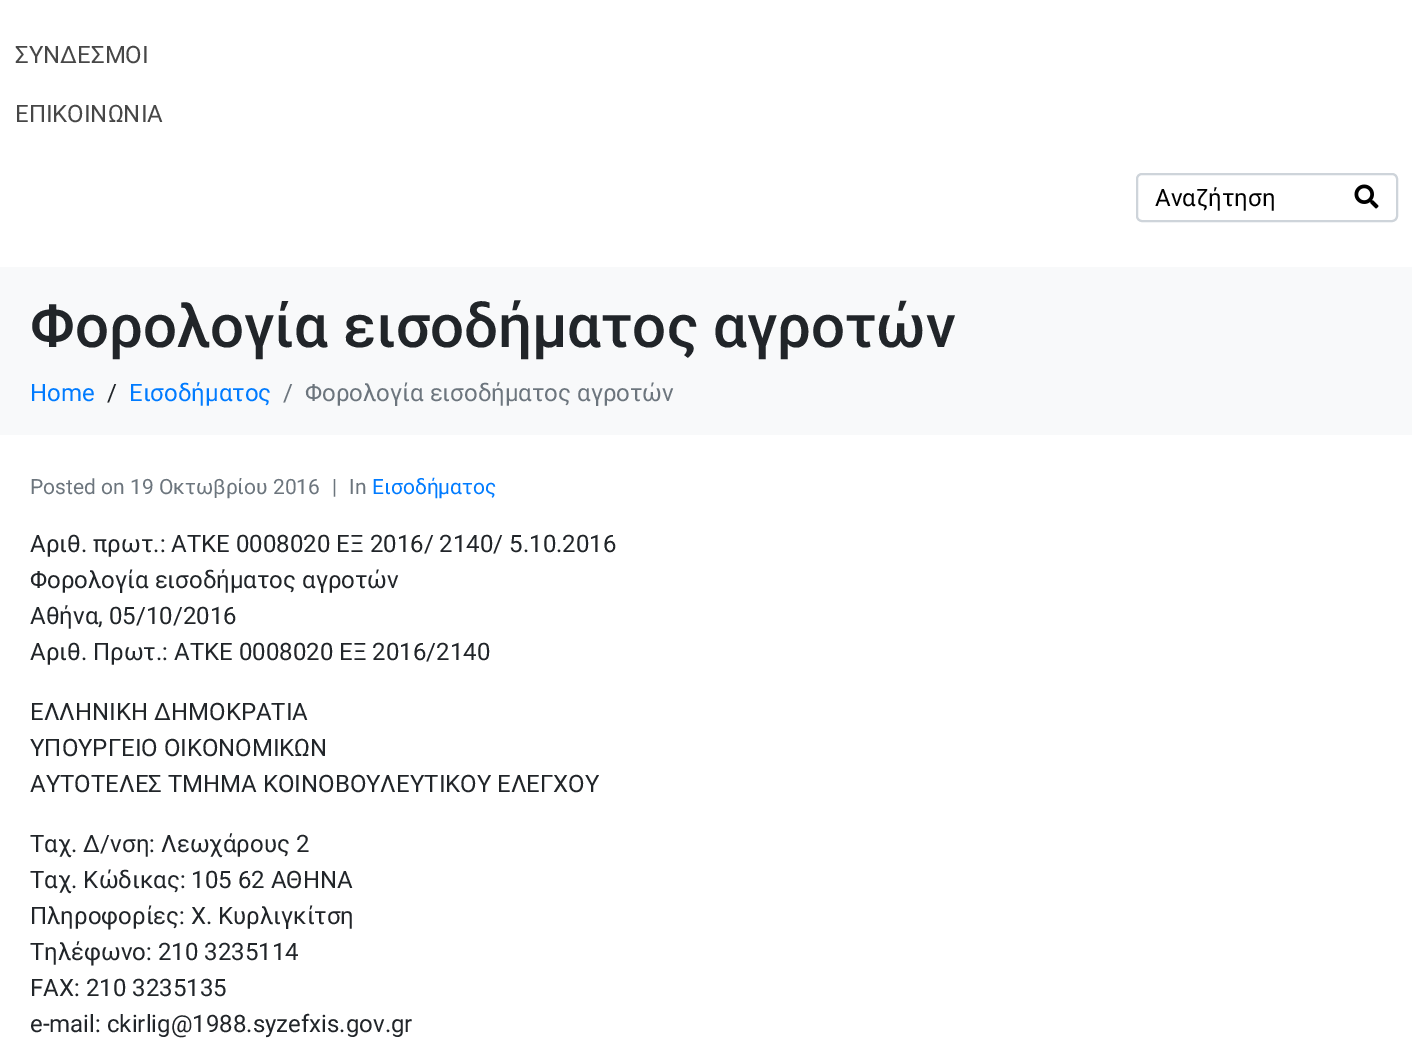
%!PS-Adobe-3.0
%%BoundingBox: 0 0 1412 1059
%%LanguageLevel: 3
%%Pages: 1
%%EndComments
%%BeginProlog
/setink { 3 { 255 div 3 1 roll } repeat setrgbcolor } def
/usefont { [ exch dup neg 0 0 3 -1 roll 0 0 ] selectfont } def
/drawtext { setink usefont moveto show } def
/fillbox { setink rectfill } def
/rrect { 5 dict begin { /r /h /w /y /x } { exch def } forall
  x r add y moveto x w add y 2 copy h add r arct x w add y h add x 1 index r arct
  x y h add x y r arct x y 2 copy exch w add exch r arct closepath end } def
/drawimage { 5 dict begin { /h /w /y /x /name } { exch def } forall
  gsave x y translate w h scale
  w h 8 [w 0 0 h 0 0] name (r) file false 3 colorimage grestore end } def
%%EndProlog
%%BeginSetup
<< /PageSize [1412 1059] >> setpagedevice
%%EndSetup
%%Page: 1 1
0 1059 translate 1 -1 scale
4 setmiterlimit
0 0 1412 1059 255 255 255 fillbox
(ΣΥΝΔΕΣΜΟΙ) 15 63 /Roboto-Regular 24 71 71 71 drawtext
(ΕΠΙΚΟΙΝΩΝΙΑ) 15 122 /Roboto-Regular 24 71 71 71 drawtext
206 212 218 setink
2 setlinewidth
1137 174 260 47 5 rrect stroke
(Αναζήτηση) 1155 206 /Roboto-Regular 24 0 0 0 drawtext
(assets/img1.rgb) 1354 184 25 25 drawimage
0 267 1412 168 248 249 250 fillbox
(Φορολογία εισοδήματος αγροτών) 30 347 /Roboto-Medium 60 33 37 41 drawtext
(Home) 30 401 /Roboto-Regular 24 0 123 255 drawtext
(/) 107 401 /Roboto-Regular 24 33 37 41 drawtext
(Εισοδήματος) 129 401 /Roboto-Regular 24 0 123 255 drawtext
(/) 283 401 /Roboto-Regular 24 108 117 125 drawtext
(Φορολογία εισοδήματος αγροτών) 305 401 /Roboto-Regular 24 108 117 125 drawtext
(Posted on 19 Οκτωβρίου 2016) 30 494 /Roboto-Regular 21 108 117 125 drawtext
(|) 332 494 /Roboto-Regular 21 108 117 125 drawtext
(In) 349 494 /Roboto-Regular 21 108 117 125 drawtext
(Εισοδήματος) 372 494 /Roboto-Regular 21 0 123 255 drawtext
(Αριθ. πρωτ.: ΑΤΚΕ 0008020 ΕΞ 2016/ 2140/ 5.10.2016) 30 552 /Roboto-Regular 24 33 37 41 drawtext
(Φορολογία εισοδήματος αγροτών) 30 588 /Roboto-Regular 24 33 37 41 drawtext
(Αθήνα, 05/10/2016) 30 624 /Roboto-Regular 24 33 37 41 drawtext
(Αριθ. Πρωτ.: ΑΤΚΕ 0008020 ΕΞ 2016/2140) 30 660 /Roboto-Regular 24 33 37 41 drawtext
(ΕΛΛΗΝΙΚΗ ΔΗΜΟΚΡΑΤΙΑ) 30 720 /Roboto-Regular 24 33 37 41 drawtext
(ΥΠΟΥΡΓΕΙΟ ΟΙΚΟΝΟΜΙΚΩΝ) 30 756 /Roboto-Regular 24 33 37 41 drawtext
(ΑΥΤΟΤΕΛΕΣ ΤΜΗΜΑ ΚΟΙΝΟΒΟΥΛΕΥΤΙΚΟΥ ΕΛΕΓΧΟΥ) 30 792 /Roboto-Regular 24 33 37 41 drawtext
(Ταχ. Δ/νση: Λεωχάρους 2) 30 852 /Roboto-Regular 24 33 37 41 drawtext
(Ταχ. Κώδικας: 105 62 ΑΘΗΝΑ) 30 888 /Roboto-Regular 24 33 37 41 drawtext
(Πληροφορίες: Χ. Κυρλιγκίτση) 30 924 /Roboto-Regular 24 33 37 41 drawtext
(Τηλέφωνο: 210 3235114) 30 960 /Roboto-Regular 24 33 37 41 drawtext
(FAX: 210 3235135) 30 996 /Roboto-Regular 24 33 37 41 drawtext
(e-mail: ckirlig@1988.syzefxis.gov.gr) 30 1032 /Roboto-Regular 24 33 37 41 drawtext
showpage
%%EOF
